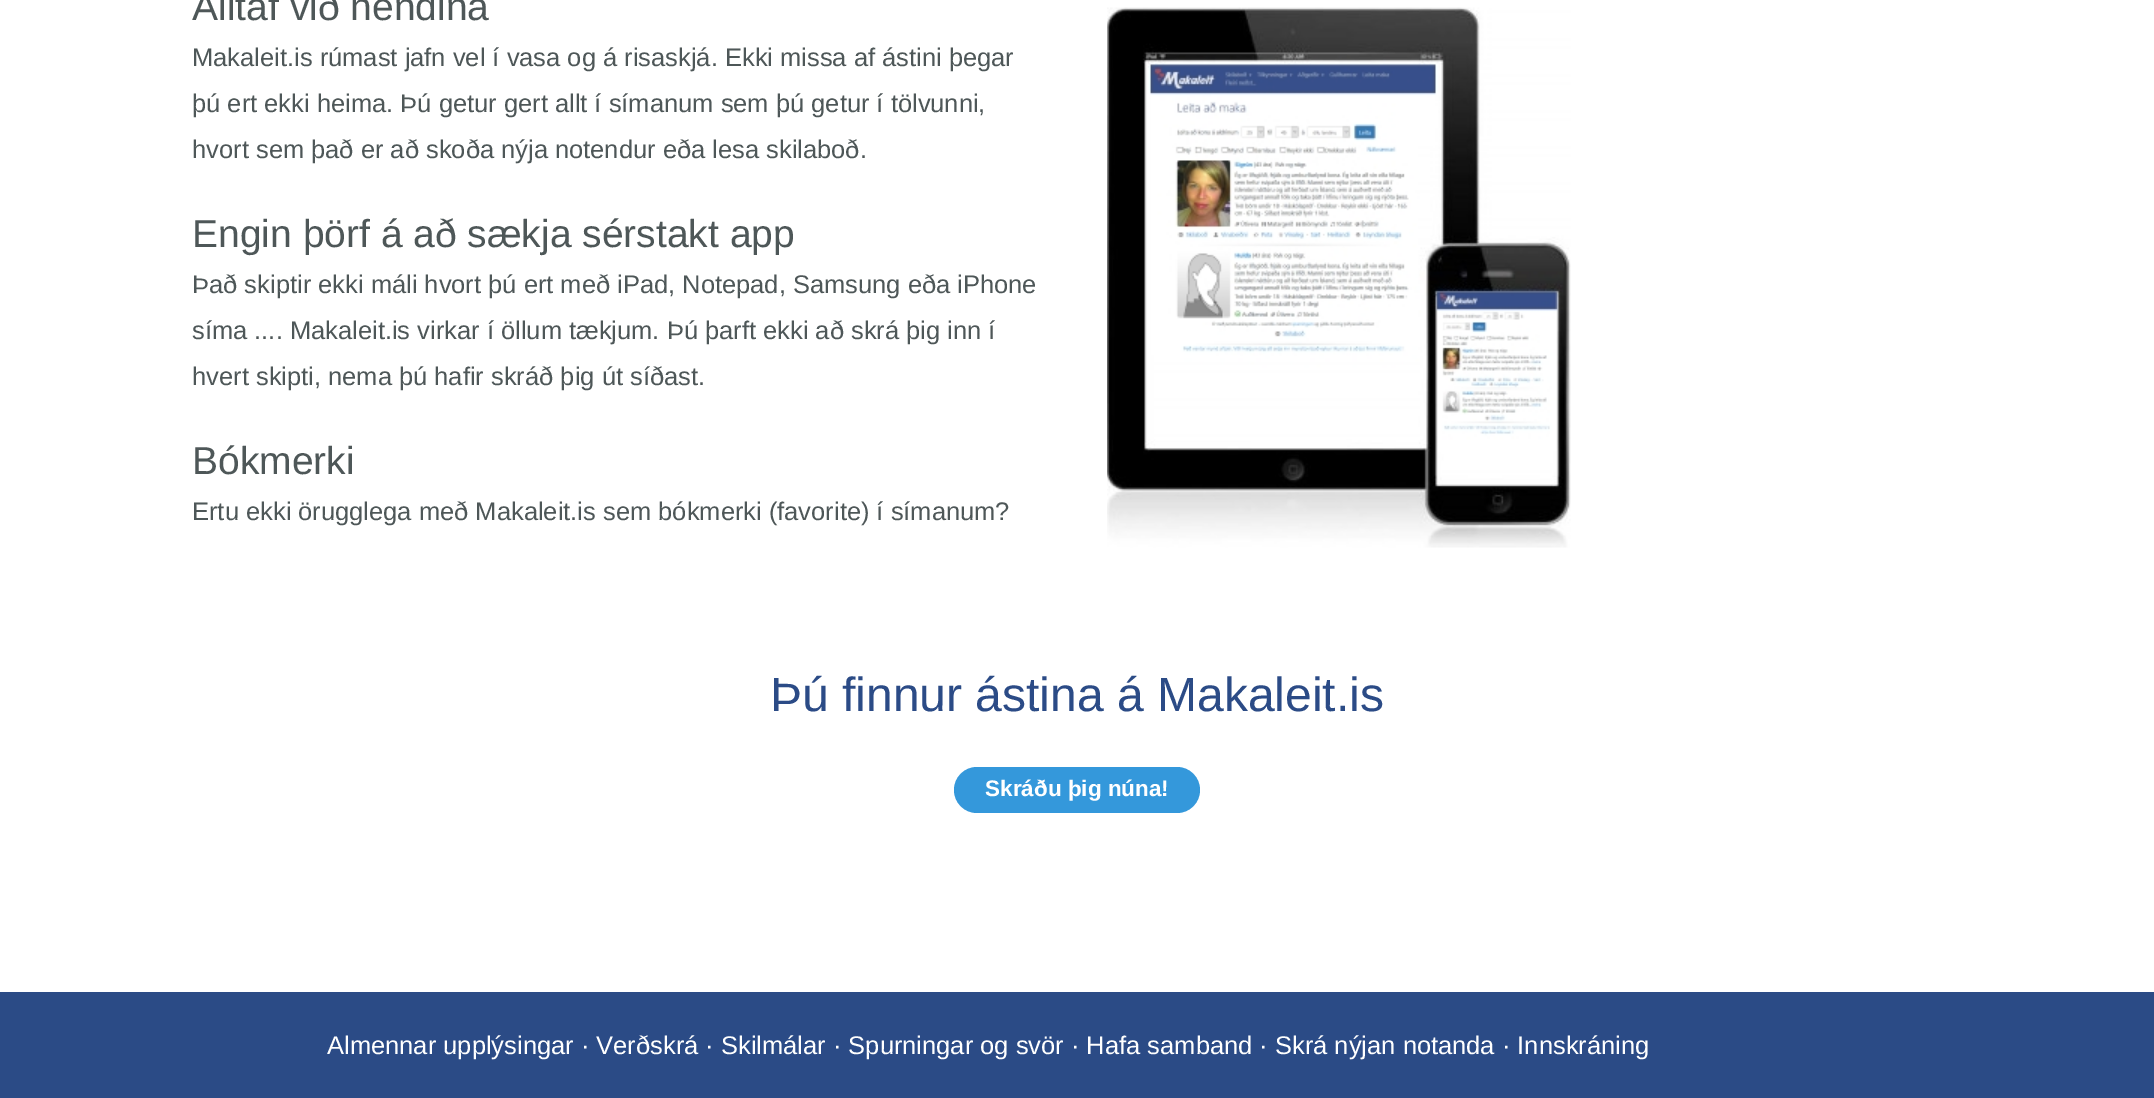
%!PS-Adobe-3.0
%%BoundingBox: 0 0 2154 1098
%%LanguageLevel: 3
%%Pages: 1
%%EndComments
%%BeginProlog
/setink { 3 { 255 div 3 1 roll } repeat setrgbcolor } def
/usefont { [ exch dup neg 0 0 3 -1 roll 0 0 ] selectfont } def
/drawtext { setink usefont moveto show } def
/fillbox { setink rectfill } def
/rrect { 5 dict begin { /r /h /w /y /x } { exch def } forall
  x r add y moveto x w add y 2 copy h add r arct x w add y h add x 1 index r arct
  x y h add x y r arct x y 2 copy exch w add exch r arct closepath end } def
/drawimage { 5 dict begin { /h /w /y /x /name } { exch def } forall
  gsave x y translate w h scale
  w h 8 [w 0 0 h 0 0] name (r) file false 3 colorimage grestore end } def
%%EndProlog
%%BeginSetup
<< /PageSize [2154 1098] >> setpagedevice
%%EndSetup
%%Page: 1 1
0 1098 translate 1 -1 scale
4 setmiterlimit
0 0 2154 1098 255 255 255 fillbox
(Alltaf við hendina) 192 20 /LiberationSans-Regular 39 78 87 88 drawtext
(Makaleit.is rúmast jafn vel í vasa og á risaskjá. Ekki missa af ástini þegar) 192 66 /LiberationSans-Regular 25.5 78 87 88 drawtext
(þú ert ekki heima. Þú getur gert allt í símanum sem þú getur í tölvunni,) 192 112 /LiberationSans-Regular 25.5 78 87 88 drawtext
(hvort sem það er að skoða nýja notendur eða lesa skilaboð.) 192 158 /LiberationSans-Regular 25.5 78 87 88 drawtext
(Engin þörf á að sækja sérstakt app) 192 247 /LiberationSans-Regular 39 78 87 88 drawtext
(Það skiptir ekki máli hvort þú ert með iPad, Notepad, Samsung eða iPhone) 192 293 /LiberationSans-Regular 25.5 78 87 88 drawtext
(síma .... Makaleit.is virkar í öllum tækjum. Þú þarft ekki að skrá þig inn í) 192 339 /LiberationSans-Regular 25.5 78 87 88 drawtext
(hvert skipti, nema þú hafir skráð þig út síðast.) 192 385 /LiberationSans-Regular 25.5 78 87 88 drawtext
(Bókmerki) 192 474 /LiberationSans-Regular 39 78 87 88 drawtext
(Ertu ekki örugglega með Makaleit.is sem bókmerki \(favorite\) í símanum?) 192 520 /LiberationSans-Regular 25.5 78 87 88 drawtext
(assets/img1.rgb) 1107 7 464 541 drawimage
(Þú finnur ástina á Makaleit.is) 770 711 /LiberationSans-Regular 48 43 75 134 drawtext
52 152 219 setink
954 767 246 46 23 rrect fill
(Skráðu þig núna!) 985 796 /LiberationSans-Bold 22.5 255 255 255 drawtext
0 992 2154 106 43 75 134 fillbox
(Almennar upplýsingar · Verðskrá · Skilmálar · Spurningar og svör · Hafa samband · Skrá nýjan notanda · Innskráning) 327 1054 /LiberationSans-Regular 25.5 255 255 255 drawtext
showpage
%%EOF
